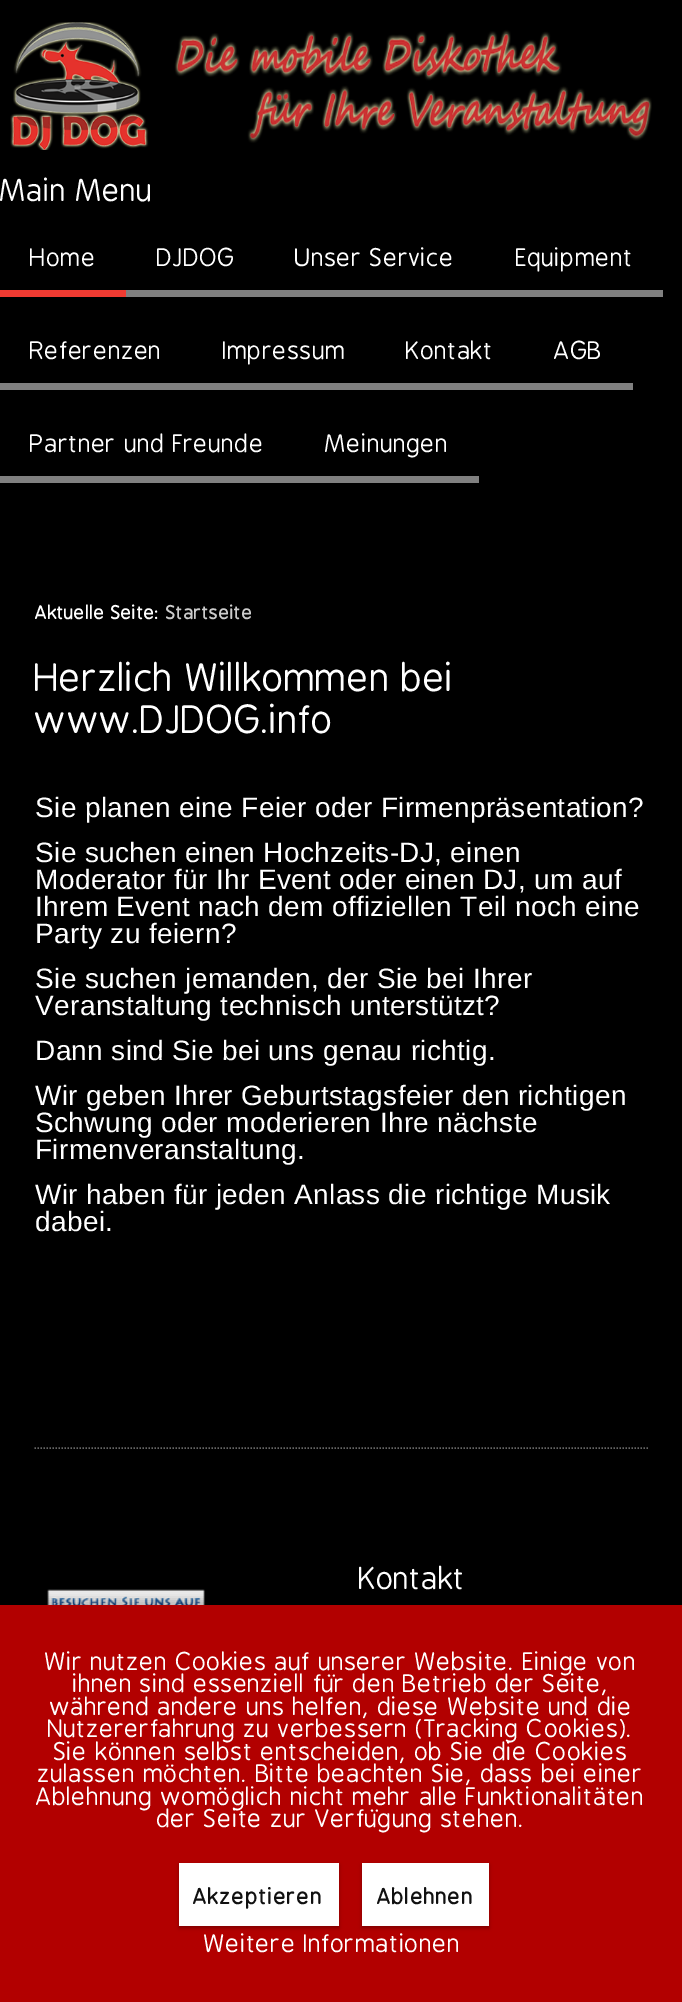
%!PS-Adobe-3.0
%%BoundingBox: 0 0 682 2002
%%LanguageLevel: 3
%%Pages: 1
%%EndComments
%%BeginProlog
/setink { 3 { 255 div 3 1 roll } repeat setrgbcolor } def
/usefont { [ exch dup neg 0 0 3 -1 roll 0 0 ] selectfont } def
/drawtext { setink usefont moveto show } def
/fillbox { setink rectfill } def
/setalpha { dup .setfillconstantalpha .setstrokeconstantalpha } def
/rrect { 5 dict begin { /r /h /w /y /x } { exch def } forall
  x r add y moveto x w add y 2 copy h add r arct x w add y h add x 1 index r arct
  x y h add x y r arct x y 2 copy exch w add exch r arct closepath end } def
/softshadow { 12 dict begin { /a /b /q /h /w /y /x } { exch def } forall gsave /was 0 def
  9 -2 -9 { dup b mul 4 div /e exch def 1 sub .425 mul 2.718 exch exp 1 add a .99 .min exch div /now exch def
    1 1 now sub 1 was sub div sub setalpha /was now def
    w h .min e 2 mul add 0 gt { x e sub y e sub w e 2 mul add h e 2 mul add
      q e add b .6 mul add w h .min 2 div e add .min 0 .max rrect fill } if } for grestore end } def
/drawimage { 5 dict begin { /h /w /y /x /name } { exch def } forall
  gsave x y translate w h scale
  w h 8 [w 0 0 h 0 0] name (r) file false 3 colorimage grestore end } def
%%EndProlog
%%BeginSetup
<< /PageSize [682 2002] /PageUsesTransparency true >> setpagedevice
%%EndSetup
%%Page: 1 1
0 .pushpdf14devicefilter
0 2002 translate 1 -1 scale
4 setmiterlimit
0 0 682 2002 0 0 0 fillbox
(assets/img1.rgb) 10 22 642 128 drawimage
(Main Menu) 0 201 /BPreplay-Regular 30 255 255 255 drawtext
0 290 126 7 240 59 50 fillbox
/BPreplay-Regular 24 usefont
255 255 255 setink
30 266 moveto 0.35 0 (Home) ashow
126 290 537 7 128 128 128 fillbox
255 255 255 setink
157 266 moveto 0.35 0 (DJDOG) ashow
295 266 moveto 0.35 0 (Unser Service) ashow
516 266 moveto 0.35 0 (Equipment) ashow
0 383 633 7 128 128 128 fillbox
255 255 255 setink
30 359 moveto 0.35 0 (Referenzen) ashow
223 359 moveto 0.35 0 (Impressum) ashow
406 359 moveto 0.35 0 (Kontakt) ashow
554 359 moveto 0.35 0 (AGB) ashow
0 476 479 7 128 128 128 fillbox
255 255 255 setink
30 452 moveto 0.35 0 (Partner und Freunde) ashow
325 452 moveto 0.35 0 (Meinungen) ashow
/BPreplay-Bold 18 usefont
35 619 moveto 0.35 0 (Aktuelle Seite:) ashow
204 204 204 setink
166 619 moveto 0.35 0 (Startseite) ashow
102 102 102 setink
1.5 setlinewidth
[1.5 1.5] 0 setdash
34.5 1448 moveto 648 1448 lineto stroke
(Herzlich Willkommen bei) 35 691 /BPreplay-Regular 37.5 255 255 255 drawtext
(www.DJDOG.info) 35 733 /BPreplay-Regular 37.5 255 255 255 drawtext
/LiberationSans-Regular 28 usefont
35 817 moveto 0.35 0 (Sie planen eine Feier oder Firmenpräsentation?) ashow
35 862 moveto 0.35 0 (Sie suchen einen Hochzeits-DJ, einen) ashow
35 889 moveto 0.35 0 (Moderator für Ihr Event oder einen DJ, um auf) ashow
35 916 moveto 0.35 0 (Ihrem Event nach dem offiziellen Teil noch eine) ashow
35 943 moveto 0.35 0 (Party zu feiern?) ashow
35 988 moveto 0.35 0 (Sie suchen jemanden, der Sie bei Ihrer) ashow
35 1015 moveto 0.35 0 (Veranstaltung technisch unterstützt?) ashow
35 1060 moveto 0.35 0 (Dann sind Sie bei uns genau richtig.) ashow
35 1105 moveto 0.35 0 (Wir geben Ihrer Geburtstagsfeier den richtigen) ashow
35 1132 moveto 0.35 0 (Schwung oder moderieren Ihre nächste) ashow
35 1159 moveto 0.35 0 (Firmenveranstaltung.) ashow
35 1204 moveto 0.35 0 (Wir haben für jeden Anlass die richtige Musik) ashow
35 1231 moveto 0.35 0 (dabei.) ashow
(Kontakt) 359 1589 /BPreplay-Regular 30 255 255 255 drawtext
(assets/img2.rgb) 47 1589 158 16 drawimage
0 0 0 setink
-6 1599 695 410 0 4 0.21 softshadow
0 1605 682 397 178 0 0 fillbox
/BPreplay-Regular 24 usefont
255 255 255 setink
45 1670 moveto 0.35 0 (Wir nutzen Cookies auf unserer Website. Einige von) ashow
73 1692 moveto 0.35 0 (ihnen sind essenziell für den Betrieb der Seite,) ashow
50 1715 moveto 0.35 0 (während andere uns helfen, diese Website und die) ashow
48 1737 moveto 0.35 0 (Nutzererfahrung zu verbessern \(Tracking Cookies\).) ashow
54 1760 moveto 0.35 0 (Sie können selbst entscheiden, ob Sie die Cookies) ashow
38 1782 moveto 0.35 0 (zulassen möchten. Bitte beachten Sie, dass bei einer) ashow
36 1805 moveto 0.35 0 (Ablehnung womöglich nicht mehr alle Funktionalitäten) ashow
157 1827 moveto 0.35 0 (der Seite zur Verfügung stehen.) ashow
0 0 0 setink
179 1865 160 63 0 2 0.3 softshadow
179 1863 160 63 255 255 255 fillbox
/BPreplay-Bold 21 usefont
17 17 17 setink
193 1904 moveto 1 0 (Akzeptieren) ashow
0 0 0 setink
362 1865 127 63 0 2 0.3 softshadow
362 1863 127 63 255 255 255 fillbox
17 17 17 setink
377 1904 moveto 1 0 (Ablehnen) ashow
/BPreplay-Regular 24 usefont
255 255 255 setink
204 1952 moveto 0.35 0 (Weitere Informationen) ashow
.poppdf14devicefilter showpage
%%EOF
